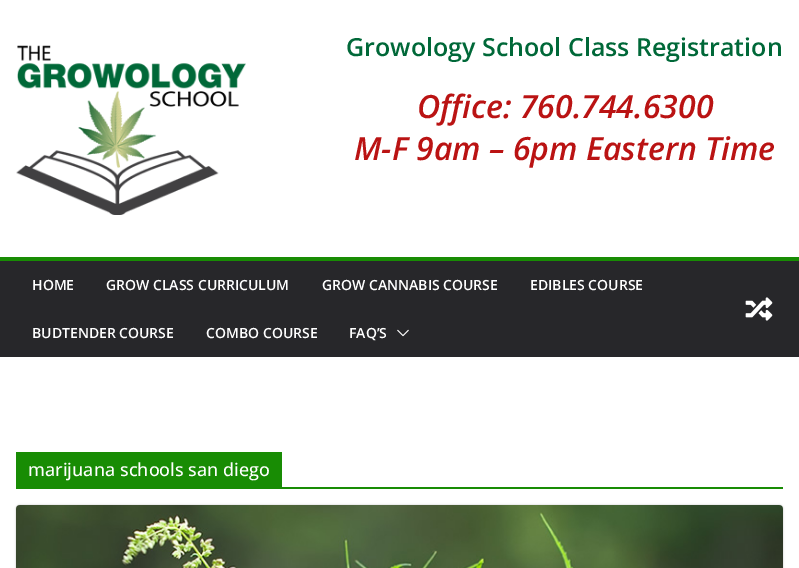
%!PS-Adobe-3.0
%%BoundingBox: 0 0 799 568
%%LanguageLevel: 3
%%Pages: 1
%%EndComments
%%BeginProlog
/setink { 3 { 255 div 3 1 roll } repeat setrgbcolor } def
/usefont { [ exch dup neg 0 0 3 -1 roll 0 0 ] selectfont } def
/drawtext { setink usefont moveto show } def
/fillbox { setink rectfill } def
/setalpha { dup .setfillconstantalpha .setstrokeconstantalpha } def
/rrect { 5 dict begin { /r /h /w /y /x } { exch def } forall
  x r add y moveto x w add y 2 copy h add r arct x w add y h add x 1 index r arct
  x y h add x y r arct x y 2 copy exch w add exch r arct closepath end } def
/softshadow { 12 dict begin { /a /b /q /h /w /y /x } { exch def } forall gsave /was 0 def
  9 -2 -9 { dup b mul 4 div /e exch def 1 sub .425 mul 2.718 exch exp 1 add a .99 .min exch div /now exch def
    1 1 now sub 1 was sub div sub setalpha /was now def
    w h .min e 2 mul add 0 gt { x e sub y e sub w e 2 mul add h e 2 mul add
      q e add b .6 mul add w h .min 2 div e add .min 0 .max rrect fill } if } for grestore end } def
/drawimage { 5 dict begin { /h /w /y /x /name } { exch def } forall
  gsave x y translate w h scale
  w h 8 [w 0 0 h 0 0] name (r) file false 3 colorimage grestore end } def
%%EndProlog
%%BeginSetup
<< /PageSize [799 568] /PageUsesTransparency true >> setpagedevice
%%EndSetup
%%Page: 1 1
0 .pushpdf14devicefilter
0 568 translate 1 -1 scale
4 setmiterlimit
0 0 799 568 255 255 255 fillbox
(assets/img1.rgb) 16 45 230 170 drawimage
(Growology School Class Registration) 346 56 /OpenSans-SemiBold 25 0 104 56 drawtext
(Office: 760.744.6300) 417 118 /OpenSans-SemiBoldItalic 32 186 19 19 drawtext
(M-F 9am – 6pm Eastern Time) 354 160 /OpenSans-SemiBoldItalic 32 186 19 19 drawtext
0 261 799 96 39 39 42 fillbox
0 257 799 4 24 140 4 fillbox
(HOME) 32 290 /OpenSans-SemiBold 14 255 255 255 drawtext
(GROW CLASS CURRICULUM) 106 290 /OpenSans-SemiBold 14 255 255 255 drawtext
(GROW CANNABIS COURSE) 322 290 /OpenSans-SemiBold 14 255 255 255 drawtext
(EDIBLES COURSE) 530 290 /OpenSans-SemiBold 14 255 255 255 drawtext
(BUDTENDER COURSE) 32 338 /OpenSans-SemiBold 14 255 255 255 drawtext
(COMBO COURSE) 206 338 /OpenSans-SemiBold 14 255 255 255 drawtext
(FAQ’S) 349 338 /OpenSans-SemiBold 14 255 255 255 drawtext
(assets/img2.rgb) 397 329 12 8 drawimage
(assets/img3.rgb) 745 297 28 24 drawimage
16 487 767 2 24 140 4 fillbox
16 452 266 35 24 140 4 fillbox
(marijuana schools san diego) 28 476 /OpenSans-Medium 18 255 255 255 drawtext
0 0 0 setink
16 505 767 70 4 1 0.24 softshadow
(assets/img4.rgb) 16 505 767 63 drawimage
.poppdf14devicefilter showpage
%%EOF
